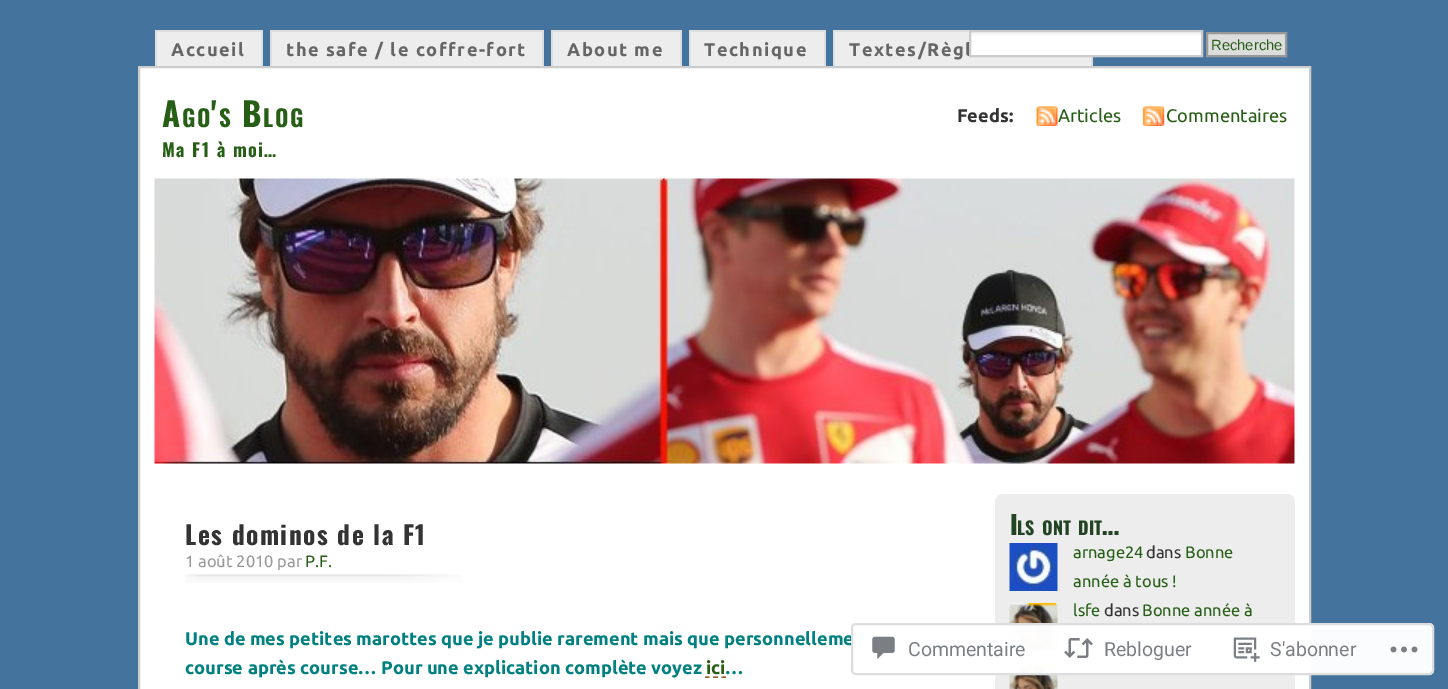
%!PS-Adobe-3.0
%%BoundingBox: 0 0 1448 689
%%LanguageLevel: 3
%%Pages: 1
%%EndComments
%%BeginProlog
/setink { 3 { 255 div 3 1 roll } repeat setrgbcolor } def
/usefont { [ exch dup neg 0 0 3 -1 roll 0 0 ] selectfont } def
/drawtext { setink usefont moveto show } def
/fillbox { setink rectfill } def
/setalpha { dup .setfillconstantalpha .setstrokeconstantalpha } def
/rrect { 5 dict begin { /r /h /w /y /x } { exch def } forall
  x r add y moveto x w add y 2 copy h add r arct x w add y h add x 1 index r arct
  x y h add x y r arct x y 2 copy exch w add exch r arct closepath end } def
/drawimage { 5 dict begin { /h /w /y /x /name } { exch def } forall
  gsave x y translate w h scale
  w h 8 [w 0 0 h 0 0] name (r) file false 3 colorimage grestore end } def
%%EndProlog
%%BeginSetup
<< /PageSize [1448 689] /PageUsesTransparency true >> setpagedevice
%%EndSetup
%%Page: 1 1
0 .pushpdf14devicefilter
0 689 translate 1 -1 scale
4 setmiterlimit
0 0 1448 689 68 116 157 fillbox
157 32 104 34 237 237 237 fillbox
155 30 108 2 222 222 222 fillbox
261 30 2 36 222 222 222 fillbox
155 30 2 36 222 222 222 fillbox
/Ubuntu-Bold 18.25 usefont
102 102 102 setink
171 56 moveto 1.5 0 (Accueil) ashow
272 32 270 34 237 237 237 fillbox
270 30 273 2 222 222 222 fillbox
542 30 2 36 222 222 222 fillbox
270 30 2 36 222 222 222 fillbox
102 102 102 setink
286 56 moveto 1.5 0 (the safe / le coffre-fort) ashow
553 32 127 34 237 237 237 fillbox
551 30 130 2 222 222 222 fillbox
680 30 2 36 222 222 222 fillbox
551 30 2 36 222 222 222 fillbox
102 102 102 setink
567 56 moveto 1.5 0 (About me) ashow
691 32 133 34 237 237 237 fillbox
689 30 136 2 222 222 222 fillbox
824 30 2 36 222 222 222 fillbox
689 30 2 36 222 222 222 fillbox
102 102 102 setink
704 56 moveto 1.5 0 (Technique) ashow
835 32 256 34 237 237 237 fillbox
833 30 136 2 222 222 222 fillbox
1091 57 2 9 222 222 222 fillbox
833 30 2 36 222 222 222 fillbox
102 102 102 setink
849 56 moveto 1.5 0 (Textes/Règl) ashow
971 36 230 19 255 255 255 fillbox
(assets/img1.rgb) 971 32 230 4 drawimage
204 204 204 setink
2 setlinewidth
970 31 232 25 rectstroke
221 221 221 setink
1207 33 moveto 1286 33 lineto 1286 56 lineto 1207 56 lineto closepath gsave fill grestore
153 153 153 setink
stroke
(Recherche) 1211 50 /LiberationSans-Regular 14.75 38 94 21 drawtext
255 255 255 setink
139 67 moveto 1310 67 lineto 1310 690 lineto 139 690 lineto closepath gsave fill grestore
204 204 204 setink
stroke
/Oswald-Bold 33 usefont
38 94 21 setink
162 127 moveto 1.5 0 (A) ashow
/Oswald-Bold 23 usefont
182 127 moveto 1.5 0 (GO) ashow
/Oswald-Bold 33 usefont
211 127 moveto 1.5 0 (') ashow
/Oswald-Bold 23 usefont
219 127 moveto 1.5 0 (S) ashow
/Oswald-Bold 33 usefont
242 127 moveto 1.5 0 (B) ashow
/Oswald-Bold 23 usefont
263 127 moveto 1.5 0 (LOG) ashow
/Oswald-Bold 18.25 usefont
162 157 moveto 1.5 0 (Ma F1 à moi…) ashow
(Feeds:) 957 122 /Ubuntu-Bold 18.25 51 51 51 drawtext
(assets/img2.rgb) 1036 106 22 20 drawimage
(Articles) 1058 122 /Ubuntu-Regular 18.25 38 94 21 drawtext
(assets/img3.rgb) 1142 106 23 20 drawimage
(Commentaires) 1166 122 /Ubuntu-Regular 18.25 38 94 21 drawtext
(assets/img4.rgb) 154 178 1141 286 drawimage
/Oswald-Bold 25.5 usefont
51 51 51 setink
185 545 moveto 1.5 0 (Les dominos de la F1) ashow
(assets/img5.rgb) 185 573 276 10 drawimage
(1 août 2010 par) 185 567 /Ubuntu-Regular 16.5 153 153 153 drawtext
(P.F.) 305 567 /Ubuntu-Regular 16.5 38 94 21 drawtext
(Une de mes petites marottes que je publie rarement mais que personnelleme) 185 645 /Ubuntu-Bold 18.25 0 128 128 drawtext
(course après course… Pour une explication complète voyez) 185 674 /Ubuntu-Bold 18.25 0 128 128 drawtext
(ici) 706 674 /Ubuntu-Bold 18.25 38 94 21 drawtext
(…) 725 674 /Ubuntu-Bold 18.25 0 128 128 drawtext
153 102 51 setink
1.5 setlinewidth
705 677 moveto 709.5 677 lineto 713 677 moveto 718 677 lineto 721.5 677 moveto 726 677 lineto stroke
237 237 237 setink
1003 494 moveto 1287 494 lineto 1291.5 494 1295 497.5 1295 502 curveto 1295 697 lineto 995 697 lineto 995 502 lineto 995 497.5 998.5 494 1003 494 curveto closepath fill
(I) 1010 535 /Oswald-Bold 26 34 68 34 drawtext
(LS) 1017 535 /Oswald-Bold 18 34 68 34 drawtext
(ONT) 1042 535 /Oswald-Bold 18 34 68 34 drawtext
(DIT) 1078 535 /Oswald-Bold 18 34 68 34 drawtext
(…) 1102 535 /Oswald-Bold 26 34 68 34 drawtext
(assets/img6.rgb) 1009 543 49 48 drawimage
(arnage24) 1073 558 /Ubuntu-Regular 16.5 38 94 21 drawtext
(dans) 1146 558 /Ubuntu-Regular 16.5 51 51 51 drawtext
(Bonne) 1185 558 /Ubuntu-Regular 16.5 38 94 21 drawtext
(année à tous !) 1073 587 /Ubuntu-Regular 16.5 38 94 21 drawtext
(assets/img7.rgb) 1009 603 49 48 drawimage
(lsfe) 1073 616 /Ubuntu-Regular 16.5 38 94 21 drawtext
(dans) 1104 616 /Ubuntu-Regular 16.5 51 51 51 drawtext
(Bonne année à) 1142 616 /Ubuntu-Regular 16.5 38 94 21 drawtext
(assets/img8.rgb) 1009 664 49 25 drawimage
0.98 setalpha
255 255 255 setink
851 623 583 52 5 rrect fill
220 220 222 setink
2 setlinewidth
852 624 581 50 4 rrect stroke
1 setalpha
(assets/img9.rgb) 872 636 23 24 drawimage
(Commentaire) 908 656 /Roboto-Regular 19.5 123 127 132 drawtext
(assets/img10.rgb) 1064 638 29 20 drawimage
(Rebloguer) 1104 656 /Roboto-Regular 19.5 123 127 132 drawtext
(assets/img11.rgb) 1233 637 27 25 drawimage
(S'abonner) 1270 656 /Roboto-Regular 19.5 123 127 132 drawtext
(assets/img12.rgb) 1390 646 28 7 drawimage
.poppdf14devicefilter showpage
%%EOF
